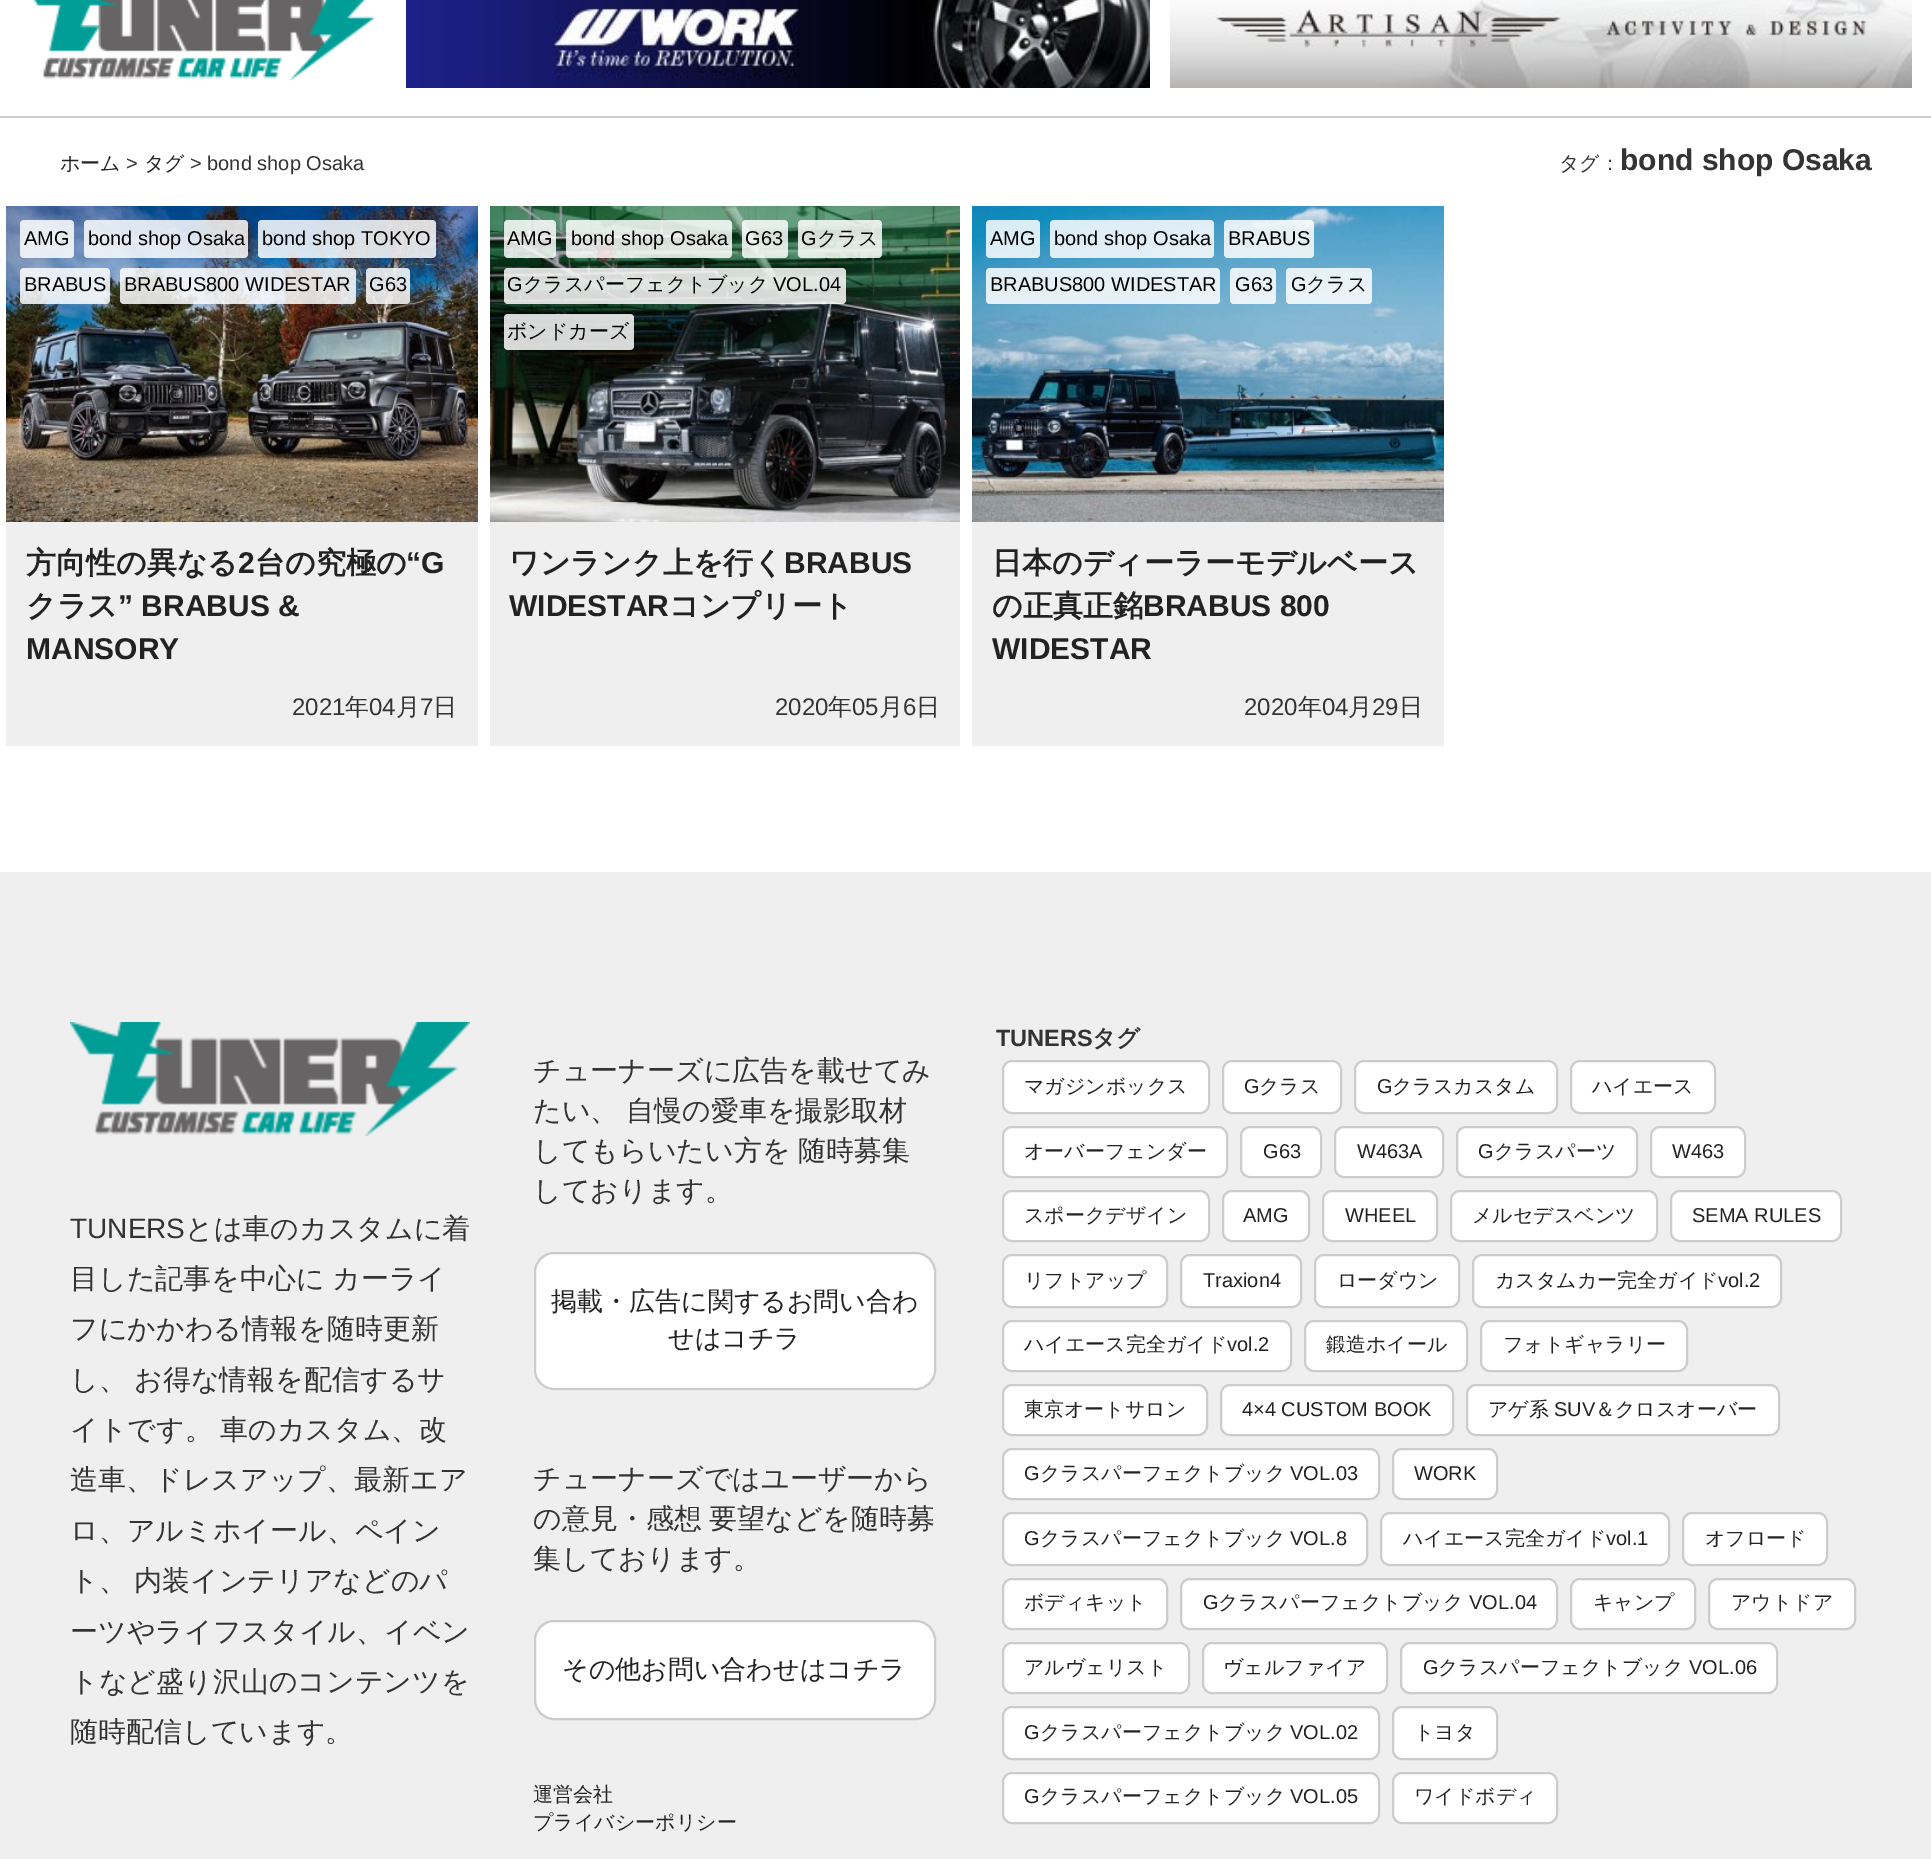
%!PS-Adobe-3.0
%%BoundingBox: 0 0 1931 1859
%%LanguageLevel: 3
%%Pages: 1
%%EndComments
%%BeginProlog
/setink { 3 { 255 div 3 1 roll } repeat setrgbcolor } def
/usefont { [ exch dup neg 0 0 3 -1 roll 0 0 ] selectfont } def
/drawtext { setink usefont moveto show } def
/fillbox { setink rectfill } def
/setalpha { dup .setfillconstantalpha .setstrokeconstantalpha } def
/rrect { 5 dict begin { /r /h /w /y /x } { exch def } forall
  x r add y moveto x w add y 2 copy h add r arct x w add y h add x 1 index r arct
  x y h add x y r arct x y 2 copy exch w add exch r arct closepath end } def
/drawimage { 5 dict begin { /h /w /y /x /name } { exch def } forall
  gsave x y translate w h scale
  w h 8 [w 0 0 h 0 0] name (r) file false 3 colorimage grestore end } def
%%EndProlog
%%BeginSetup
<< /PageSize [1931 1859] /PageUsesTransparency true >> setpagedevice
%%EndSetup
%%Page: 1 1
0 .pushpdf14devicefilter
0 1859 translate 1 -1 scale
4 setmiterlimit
0 0 1931 1859 255 255 255 fillbox
0 116 1931 2 204 204 204 fillbox
(assets/img1.rgb) 33 0 342 80 drawimage
(assets/img2.rgb) 406 0 744 88 drawimage
(assets/img3.rgb) 1170 0 742 88 drawimage
(ホーム) 60 170 /WenQuanYiZenHei-Medium 20 34 34 34 drawtext
(>) 126 170 /LiberationSans-Regular 20 51 51 51 drawtext
(タグ) 144 170 /WenQuanYiZenHei-Medium 20 34 34 34 drawtext
(> bond shop Osaka) 190 170 /LiberationSans-Regular 20 51 51 51 drawtext
(タグ：) 1559 170 /WenQuanYiZenHei-Medium 20 51 51 51 drawtext
(bond shop Osaka) 1620 170 /LiberationSans-Bold 30 51 51 51 drawtext
(assets/img4.rgb) 6 206 472 316 drawimage
6 522 472 224 239 239 239 fillbox
0.84 setalpha
255 255 255 setink
20 220 54 38 4 rrect fill
1 setalpha
(AMG) 24 245 /LiberationSans-Regular 20 0 0 0 drawtext
0.84 setalpha
255 255 255 setink
84 220 164 38 4 rrect fill
1 setalpha
(bond shop Osaka) 88 245 /LiberationSans-Regular 20 0 0 0 drawtext
0.84 setalpha
255 255 255 setink
258 220 178 38 4 rrect fill
1 setalpha
(bond shop TOKYO) 262 245 /LiberationSans-Regular 20 0 0 0 drawtext
0.84 setalpha
255 255 255 setink
20 268 90 36 4 rrect fill
1 setalpha
(BRABUS) 24 291 /LiberationSans-Regular 20 0 0 0 drawtext
0.84 setalpha
255 255 255 setink
120 268 236 36 4 rrect fill
1 setalpha
(BRABUS800 WIDESTAR) 124 291 /LiberationSans-Regular 20 0 0 0 drawtext
0.84 setalpha
255 255 255 setink
366 268 44 36 4 rrect fill
1 setalpha
(G63) 369 291 /LiberationSans-Regular 20 0 0 0 drawtext
(方向性の異なる) 26 573 /WenQuanYiZenHei-Bold 30 34 34 34 drawtext
(2) 238 573 /LiberationSans-Bold 30 34 34 34 drawtext
(台の究極の) 255 573 /WenQuanYiZenHei-Bold 30 34 34 34 drawtext
(“G) 406 573 /LiberationSans-Bold 30 34 34 34 drawtext
(クラス) 26 616 /WenQuanYiZenHei-Bold 30 34 34 34 drawtext
(” BRABUS &) 118 616 /LiberationSans-Bold 30 34 34 34 drawtext
(MANSORY) 26 659 /LiberationSans-Bold 30 34 34 34 drawtext
(2021) 292 715 /LiberationSans-Regular 24 51 51 51 drawtext
(年) 345 715 /WenQuanYiZenHei-Medium 24 51 51 51 drawtext
(04) 369 715 /LiberationSans-Regular 24 51 51 51 drawtext
(月) 396 715 /WenQuanYiZenHei-Medium 24 51 51 51 drawtext
(7) 420 715 /LiberationSans-Regular 24 51 51 51 drawtext
(日) 433 715 /WenQuanYiZenHei-Medium 24 51 51 51 drawtext
(assets/img5.rgb) 490 206 470 316 drawimage
490 522 470 224 239 239 239 fillbox
0.84 setalpha
255 255 255 setink
504 220 52 38 4 rrect fill
1 setalpha
(AMG) 507 245 /LiberationSans-Regular 20 0 0 0 drawtext
0.84 setalpha
255 255 255 setink
566 220 166 38 4 rrect fill
1 setalpha
(bond shop Osaka) 571 245 /LiberationSans-Regular 20 0 0 0 drawtext
0.84 setalpha
255 255 255 setink
742 220 46 38 4 rrect fill
1 setalpha
(G63) 745 245 /LiberationSans-Regular 20 0 0 0 drawtext
0.84 setalpha
255 255 255 setink
798 220 84 38 4 rrect fill
1 setalpha
(G) 801 245 /LiberationSans-Regular 20 0 0 0 drawtext
(クラス) 817 245 /WenQuanYiZenHei-Medium 20 0 0 0 drawtext
0.84 setalpha
255 255 255 setink
504 268 342 36 4 rrect fill
1 setalpha
(G) 507 291 /LiberationSans-Regular 20 0 0 0 drawtext
(クラスパーフェクトブック) 523 291 /WenQuanYiZenHei-Medium 20 0 0 0 drawtext
(VOL.04) 773 291 /LiberationSans-Regular 20 0 0 0 drawtext
0.84 setalpha
255 255 255 setink
504 314 130 36 4 rrect fill
1 setalpha
(ボンドカーズ) 507 338 /WenQuanYiZenHei-Medium 20 0 0 0 drawtext
(ワンランク上を行く) 509 573 /WenQuanYiZenHei-Bold 30 34 34 34 drawtext
(BRABUS) 784 573 /LiberationSans-Bold 30 34 34 34 drawtext
(WIDESTAR) 509 616 /LiberationSans-Bold 30 34 34 34 drawtext
(コンプリート) 669 616 /WenQuanYiZenHei-Bold 30 34 34 34 drawtext
(2020) 775 715 /LiberationSans-Regular 24 51 51 51 drawtext
(年) 828 715 /WenQuanYiZenHei-Medium 24 51 51 51 drawtext
(05) 852 715 /LiberationSans-Regular 24 51 51 51 drawtext
(月) 879 715 /WenQuanYiZenHei-Medium 24 51 51 51 drawtext
(6) 903 715 /LiberationSans-Regular 24 51 51 51 drawtext
(日) 916 715 /WenQuanYiZenHei-Medium 24 51 51 51 drawtext
(assets/img6.rgb) 972 206 472 316 drawimage
972 522 472 224 239 239 239 fillbox
0.84 setalpha
255 255 255 setink
986 220 54 38 4 rrect fill
1 setalpha
(AMG) 990 245 /LiberationSans-Regular 20 0 0 0 drawtext
0.84 setalpha
255 255 255 setink
1050 220 164 38 4 rrect fill
1 setalpha
(bond shop Osaka) 1054 245 /LiberationSans-Regular 20 0 0 0 drawtext
0.84 setalpha
255 255 255 setink
1224 220 90 38 4 rrect fill
1 setalpha
(BRABUS) 1228 245 /LiberationSans-Regular 20 0 0 0 drawtext
0.84 setalpha
255 255 255 setink
986 268 234 36 4 rrect fill
1 setalpha
(BRABUS800 WIDESTAR) 990 291 /LiberationSans-Regular 20 0 0 0 drawtext
0.84 setalpha
255 255 255 setink
1230 268 46 36 4 rrect fill
1 setalpha
(G63) 1235 291 /LiberationSans-Regular 20 0 0 0 drawtext
0.84 setalpha
255 255 255 setink
1286 268 86 36 4 rrect fill
1 setalpha
(G) 1291 291 /LiberationSans-Regular 20 0 0 0 drawtext
(クラス) 1306 291 /WenQuanYiZenHei-Medium 20 0 0 0 drawtext
(日本のディーラーモデルベース) 992 573 /WenQuanYiZenHei-Bold 30 34 34 34 drawtext
(の正真正銘) 992 616 /WenQuanYiZenHei-Bold 30 34 34 34 drawtext
(BRABUS 800) 1143 616 /LiberationSans-Bold 30 34 34 34 drawtext
(WIDESTAR) 992 659 /LiberationSans-Bold 30 34 34 34 drawtext
(2020) 1244 715 /LiberationSans-Regular 24 51 51 51 drawtext
(年) 1298 715 /WenQuanYiZenHei-Medium 24 51 51 51 drawtext
(04) 1322 715 /LiberationSans-Regular 24 51 51 51 drawtext
(月) 1348 715 /WenQuanYiZenHei-Medium 24 51 51 51 drawtext
(29) 1372 715 /LiberationSans-Regular 24 51 51 51 drawtext
(日) 1399 715 /WenQuanYiZenHei-Medium 24 51 51 51 drawtext
0 872 1931 987 239 239 239 fillbox
(assets/img7.rgb) 70 1022 400 114 drawimage
(TUNERS) 70 1238 /LiberationSans-Regular 28 51 51 51 drawtext
(とは車のカスタムに着) 185 1238 /WenQuanYiZenHei-Medium 28 51 51 51 drawtext
(目した記事を中心に) 70 1288 /WenQuanYiZenHei-Medium 28 51 51 51 drawtext
(カーライ) 332 1288 /WenQuanYiZenHei-Medium 28 51 51 51 drawtext
(フにかかわる情報を随時更新) 70 1338 /WenQuanYiZenHei-Medium 28 51 51 51 drawtext
(し、) 70 1389 /WenQuanYiZenHei-Medium 28 51 51 51 drawtext
(お得な情報を配信するサ) 134 1389 /WenQuanYiZenHei-Medium 28 51 51 51 drawtext
(イトです。) 70 1439 /WenQuanYiZenHei-Medium 28 51 51 51 drawtext
(車のカスタム、改) 220 1439 /WenQuanYiZenHei-Medium 28 51 51 51 drawtext
(造車、ドレスアップ、最新エア) 70 1489 /WenQuanYiZenHei-Medium 28 51 51 51 drawtext
(ロ、アルミホイール、ペイン) 70 1540 /WenQuanYiZenHei-Medium 28 51 51 51 drawtext
(ト、) 70 1590 /WenQuanYiZenHei-Medium 28 51 51 51 drawtext
(内装インテリアなどのパ) 134 1590 /WenQuanYiZenHei-Medium 28 51 51 51 drawtext
(ーツやライフスタイル、イベン) 70 1641 /WenQuanYiZenHei-Medium 28 51 51 51 drawtext
(トなど盛り沢山のコンテンツを) 70 1691 /WenQuanYiZenHei-Medium 28 51 51 51 drawtext
(随時配信しています。) 70 1741 /WenQuanYiZenHei-Medium 28 51 51 51 drawtext
(チューナーズに広告を載せてみ) 533 1080 /WenQuanYiZenHei-Medium 28 51 51 51 drawtext
(たい、) 533 1120 /WenQuanYiZenHei-Medium 28 51 51 51 drawtext
(自慢の愛車を撮影取材) 626 1120 /WenQuanYiZenHei-Medium 28 51 51 51 drawtext
(してもらいたい方を) 533 1160 /WenQuanYiZenHei-Medium 28 51 51 51 drawtext
(随時募集) 798 1160 /WenQuanYiZenHei-Medium 28 51 51 51 drawtext
(しております。) 533 1200 /WenQuanYiZenHei-Medium 28 51 51 51 drawtext
255 255 255 setink
535 1253 400 136 19 rrect gsave fill grestore
204 204 204 setink
2 setlinewidth
stroke
(掲載・広告に関するお問い合わ) 551 1310 /WenQuanYiZenHei-Medium 26 34 34 34 drawtext
(せはコチラ) 668 1347 /WenQuanYiZenHei-Medium 26 34 34 34 drawtext
(チューナーズではユーザーから) 533 1488 /WenQuanYiZenHei-Medium 28 51 51 51 drawtext
(の意見・感想) 533 1528 /WenQuanYiZenHei-Medium 28 51 51 51 drawtext
(要望などを随時募) 709 1528 /WenQuanYiZenHei-Medium 28 51 51 51 drawtext
(集しております。) 533 1568 /WenQuanYiZenHei-Medium 28 51 51 51 drawtext
255 255 255 setink
535 1621 400 98 19 rrect gsave fill grestore
204 204 204 setink
stroke
(その他お問い合わせはコチラ) 562 1678 /WenQuanYiZenHei-Medium 26 34 34 34 drawtext
(運営会社) 533 1801 /WenQuanYiZenHei-Medium 20 34 34 34 drawtext
(プライバシーポリシー) 533 1829 /WenQuanYiZenHei-Medium 20 34 34 34 drawtext
(TUNERS) 996 1046 /LiberationSans-Bold 23.5 51 51 51 drawtext
(タグ) 1092 1046 /WenQuanYiZenHei-Bold 23.5 51 51 51 drawtext
255 255 255 setink
1003 1061 206 52 9 rrect gsave fill grestore
204 204 204 setink
stroke
(マガジンボックス) 1024 1093 /WenQuanYiZenHei-Medium 20 34 34 34 drawtext
255 255 255 setink
1223 1061 118 52 9 rrect gsave fill grestore
204 204 204 setink
stroke
(G) 1244 1093 /LiberationSans-Regular 20 34 34 34 drawtext
(クラス) 1259 1093 /WenQuanYiZenHei-Medium 20 34 34 34 drawtext
255 255 255 setink
1355 1061 202 52 9 rrect gsave fill grestore
204 204 204 setink
stroke
(G) 1377 1093 /LiberationSans-Regular 20 34 34 34 drawtext
(クラスカスタム) 1392 1093 /WenQuanYiZenHei-Medium 20 34 34 34 drawtext
255 255 255 setink
1571 1061 144 52 9 rrect gsave fill grestore
204 204 204 setink
stroke
(ハイエース) 1592 1093 /WenQuanYiZenHei-Medium 20 34 34 34 drawtext
255 255 255 setink
1003 1127 224 50 9 rrect gsave fill grestore
204 204 204 setink
stroke
(オーバーフェンダー) 1024 1158 /WenQuanYiZenHei-Medium 20 34 34 34 drawtext
255 255 255 setink
1241 1127 80 50 9 rrect gsave fill grestore
204 204 204 setink
stroke
(G63) 1263 1158 /LiberationSans-Regular 20 34 34 34 drawtext
255 255 255 setink
1335 1127 108 50 9 rrect gsave fill grestore
204 204 204 setink
stroke
(W463A) 1357 1158 /LiberationSans-Regular 20 34 34 34 drawtext
255 255 255 setink
1457 1127 180 50 9 rrect gsave fill grestore
204 204 204 setink
stroke
(G) 1478 1158 /LiberationSans-Regular 20 34 34 34 drawtext
(クラスパーツ) 1494 1158 /WenQuanYiZenHei-Medium 20 34 34 34 drawtext
255 255 255 setink
1651 1127 94 50 9 rrect gsave fill grestore
204 204 204 setink
stroke
(W463) 1672 1158 /LiberationSans-Regular 20 34 34 34 drawtext
255 255 255 setink
1003 1191 206 50 9 rrect gsave fill grestore
204 204 204 setink
stroke
(スポークデザイン) 1024 1222 /WenQuanYiZenHei-Medium 20 34 34 34 drawtext
255 255 255 setink
1223 1191 86 50 9 rrect gsave fill grestore
204 204 204 setink
stroke
(AMG) 1243 1222 /LiberationSans-Regular 20 34 34 34 drawtext
255 255 255 setink
1323 1191 114 50 9 rrect gsave fill grestore
204 204 204 setink
stroke
(WHEEL) 1345 1222 /LiberationSans-Regular 20 34 34 34 drawtext
255 255 255 setink
1451 1191 206 50 9 rrect gsave fill grestore
204 204 204 setink
stroke
(メルセデスベンツ) 1472 1222 /WenQuanYiZenHei-Medium 20 34 34 34 drawtext
255 255 255 setink
1671 1191 170 50 9 rrect gsave fill grestore
204 204 204 setink
stroke
(SEMA RULES) 1692 1222 /LiberationSans-Regular 20 34 34 34 drawtext
255 255 255 setink
1003 1255 164 52 9 rrect gsave fill grestore
204 204 204 setink
stroke
(リフトアップ) 1024 1287 /WenQuanYiZenHei-Medium 20 34 34 34 drawtext
255 255 255 setink
1181 1255 120 52 9 rrect gsave fill grestore
204 204 204 setink
stroke
(Traxion4) 1203 1287 /LiberationSans-Regular 20 34 34 34 drawtext
255 255 255 setink
1315 1255 144 52 9 rrect gsave fill grestore
204 204 204 setink
stroke
(ローダウン) 1337 1287 /WenQuanYiZenHei-Medium 20 34 34 34 drawtext
255 255 255 setink
1473 1255 308 52 9 rrect gsave fill grestore
204 204 204 setink
stroke
(カスタムカー完全ガイド) 1495 1287 /WenQuanYiZenHei-Medium 20 34 34 34 drawtext
(vol.2) 1718 1287 /LiberationSans-Regular 20 34 34 34 drawtext
255 255 255 setink
1003 1321 288 50 9 rrect gsave fill grestore
204 204 204 setink
stroke
(ハイエース完全ガイド) 1024 1351 /WenQuanYiZenHei-Medium 20 34 34 34 drawtext
(vol.2) 1227 1351 /LiberationSans-Regular 20 34 34 34 drawtext
255 255 255 setink
1305 1321 162 50 9 rrect gsave fill grestore
204 204 204 setink
stroke
(鍛造ホイール) 1326 1351 /WenQuanYiZenHei-Medium 20 34 34 34 drawtext
255 255 255 setink
1481 1321 206 50 9 rrect gsave fill grestore
204 204 204 setink
stroke
(フォトギャラリー) 1503 1351 /WenQuanYiZenHei-Medium 20 34 34 34 drawtext
255 255 255 setink
1003 1385 204 50 9 rrect gsave fill grestore
204 204 204 setink
stroke
(東京オートサロン) 1024 1416 /WenQuanYiZenHei-Medium 20 34 34 34 drawtext
255 255 255 setink
1221 1385 232 50 9 rrect gsave fill grestore
204 204 204 setink
stroke
(4×4 CUSTOM BOOK) 1242 1416 /LiberationSans-Regular 20 34 34 34 drawtext
255 255 255 setink
1467 1385 312 50 9 rrect gsave fill grestore
204 204 204 setink
stroke
(アゲ系) 1488 1416 /WenQuanYiZenHei-Medium 20 34 34 34 drawtext
(SUV) 1554 1416 /LiberationSans-Regular 20 34 34 34 drawtext
(＆クロスオーバー) 1595 1416 /WenQuanYiZenHei-Medium 20 34 34 34 drawtext
255 255 255 setink
1003 1449 376 50 9 rrect gsave fill grestore
204 204 204 setink
stroke
(G) 1024 1480 /LiberationSans-Regular 20 34 34 34 drawtext
(クラスパーフェクトブック) 1040 1480 /WenQuanYiZenHei-Medium 20 34 34 34 drawtext
(VOL.03) 1290 1480 /LiberationSans-Regular 20 34 34 34 drawtext
255 255 255 setink
1393 1449 104 50 9 rrect gsave fill grestore
204 204 204 setink
stroke
(WORK) 1414 1480 /LiberationSans-Regular 20 34 34 34 drawtext
255 255 255 setink
1003 1513 364 52 9 rrect gsave fill grestore
204 204 204 setink
stroke
(G) 1024 1545 /LiberationSans-Regular 20 34 34 34 drawtext
(クラスパーフェクトブック) 1040 1545 /WenQuanYiZenHei-Medium 20 34 34 34 drawtext
(VOL.8) 1290 1545 /LiberationSans-Regular 20 34 34 34 drawtext
255 255 255 setink
1381 1513 288 52 9 rrect gsave fill grestore
204 204 204 setink
stroke
(ハイエース完全ガイド) 1403 1545 /WenQuanYiZenHei-Medium 20 34 34 34 drawtext
(vol.1) 1606 1545 /LiberationSans-Regular 20 34 34 34 drawtext
255 255 255 setink
1683 1513 144 52 9 rrect gsave fill grestore
204 204 204 setink
stroke
(オフロード) 1705 1545 /WenQuanYiZenHei-Medium 20 34 34 34 drawtext
255 255 255 setink
1003 1579 164 50 9 rrect gsave fill grestore
204 204 204 setink
stroke
(ボディキット) 1024 1609 /WenQuanYiZenHei-Medium 20 34 34 34 drawtext
255 255 255 setink
1181 1579 376 50 9 rrect gsave fill grestore
204 204 204 setink
stroke
(G) 1203 1609 /LiberationSans-Regular 20 34 34 34 drawtext
(クラスパーフェクトブック) 1218 1609 /WenQuanYiZenHei-Medium 20 34 34 34 drawtext
(VOL.04) 1469 1609 /LiberationSans-Regular 20 34 34 34 drawtext
255 255 255 setink
1571 1579 124 50 9 rrect gsave fill grestore
204 204 204 setink
stroke
(キャンプ) 1593 1609 /WenQuanYiZenHei-Medium 20 34 34 34 drawtext
255 255 255 setink
1709 1579 146 50 9 rrect gsave fill grestore
204 204 204 setink
stroke
(アウトドア) 1731 1609 /WenQuanYiZenHei-Medium 20 34 34 34 drawtext
255 255 255 setink
1003 1643 186 50 9 rrect gsave fill grestore
204 204 204 setink
stroke
(アルヴェリスト) 1024 1674 /WenQuanYiZenHei-Medium 20 34 34 34 drawtext
255 255 255 setink
1203 1643 184 50 9 rrect gsave fill grestore
204 204 204 setink
stroke
(ヴェルファイア) 1223 1674 /WenQuanYiZenHei-Medium 20 34 34 34 drawtext
255 255 255 setink
1401 1643 376 50 9 rrect gsave fill grestore
204 204 204 setink
stroke
(G) 1423 1674 /LiberationSans-Regular 20 34 34 34 drawtext
(クラスパーフェクトブック) 1438 1674 /WenQuanYiZenHei-Medium 20 34 34 34 drawtext
(VOL.06) 1689 1674 /LiberationSans-Regular 20 34 34 34 drawtext
255 255 255 setink
1003 1707 376 52 9 rrect gsave fill grestore
204 204 204 setink
stroke
(G) 1024 1739 /LiberationSans-Regular 20 34 34 34 drawtext
(クラスパーフェクトブック) 1040 1739 /WenQuanYiZenHei-Medium 20 34 34 34 drawtext
(VOL.02) 1290 1739 /LiberationSans-Regular 20 34 34 34 drawtext
255 255 255 setink
1393 1707 104 52 9 rrect gsave fill grestore
204 204 204 setink
stroke
(トヨタ) 1414 1739 /WenQuanYiZenHei-Medium 20 34 34 34 drawtext
255 255 255 setink
1003 1773 376 50 9 rrect gsave fill grestore
204 204 204 setink
stroke
(G) 1024 1803 /LiberationSans-Regular 20 34 34 34 drawtext
(クラスパーフェクトブック) 1040 1803 /WenQuanYiZenHei-Medium 20 34 34 34 drawtext
(VOL.05) 1290 1803 /LiberationSans-Regular 20 34 34 34 drawtext
255 255 255 setink
1393 1773 164 50 9 rrect gsave fill grestore
204 204 204 setink
stroke
(ワイドボディ) 1414 1803 /WenQuanYiZenHei-Medium 20 34 34 34 drawtext
.poppdf14devicefilter showpage
%%EOF
